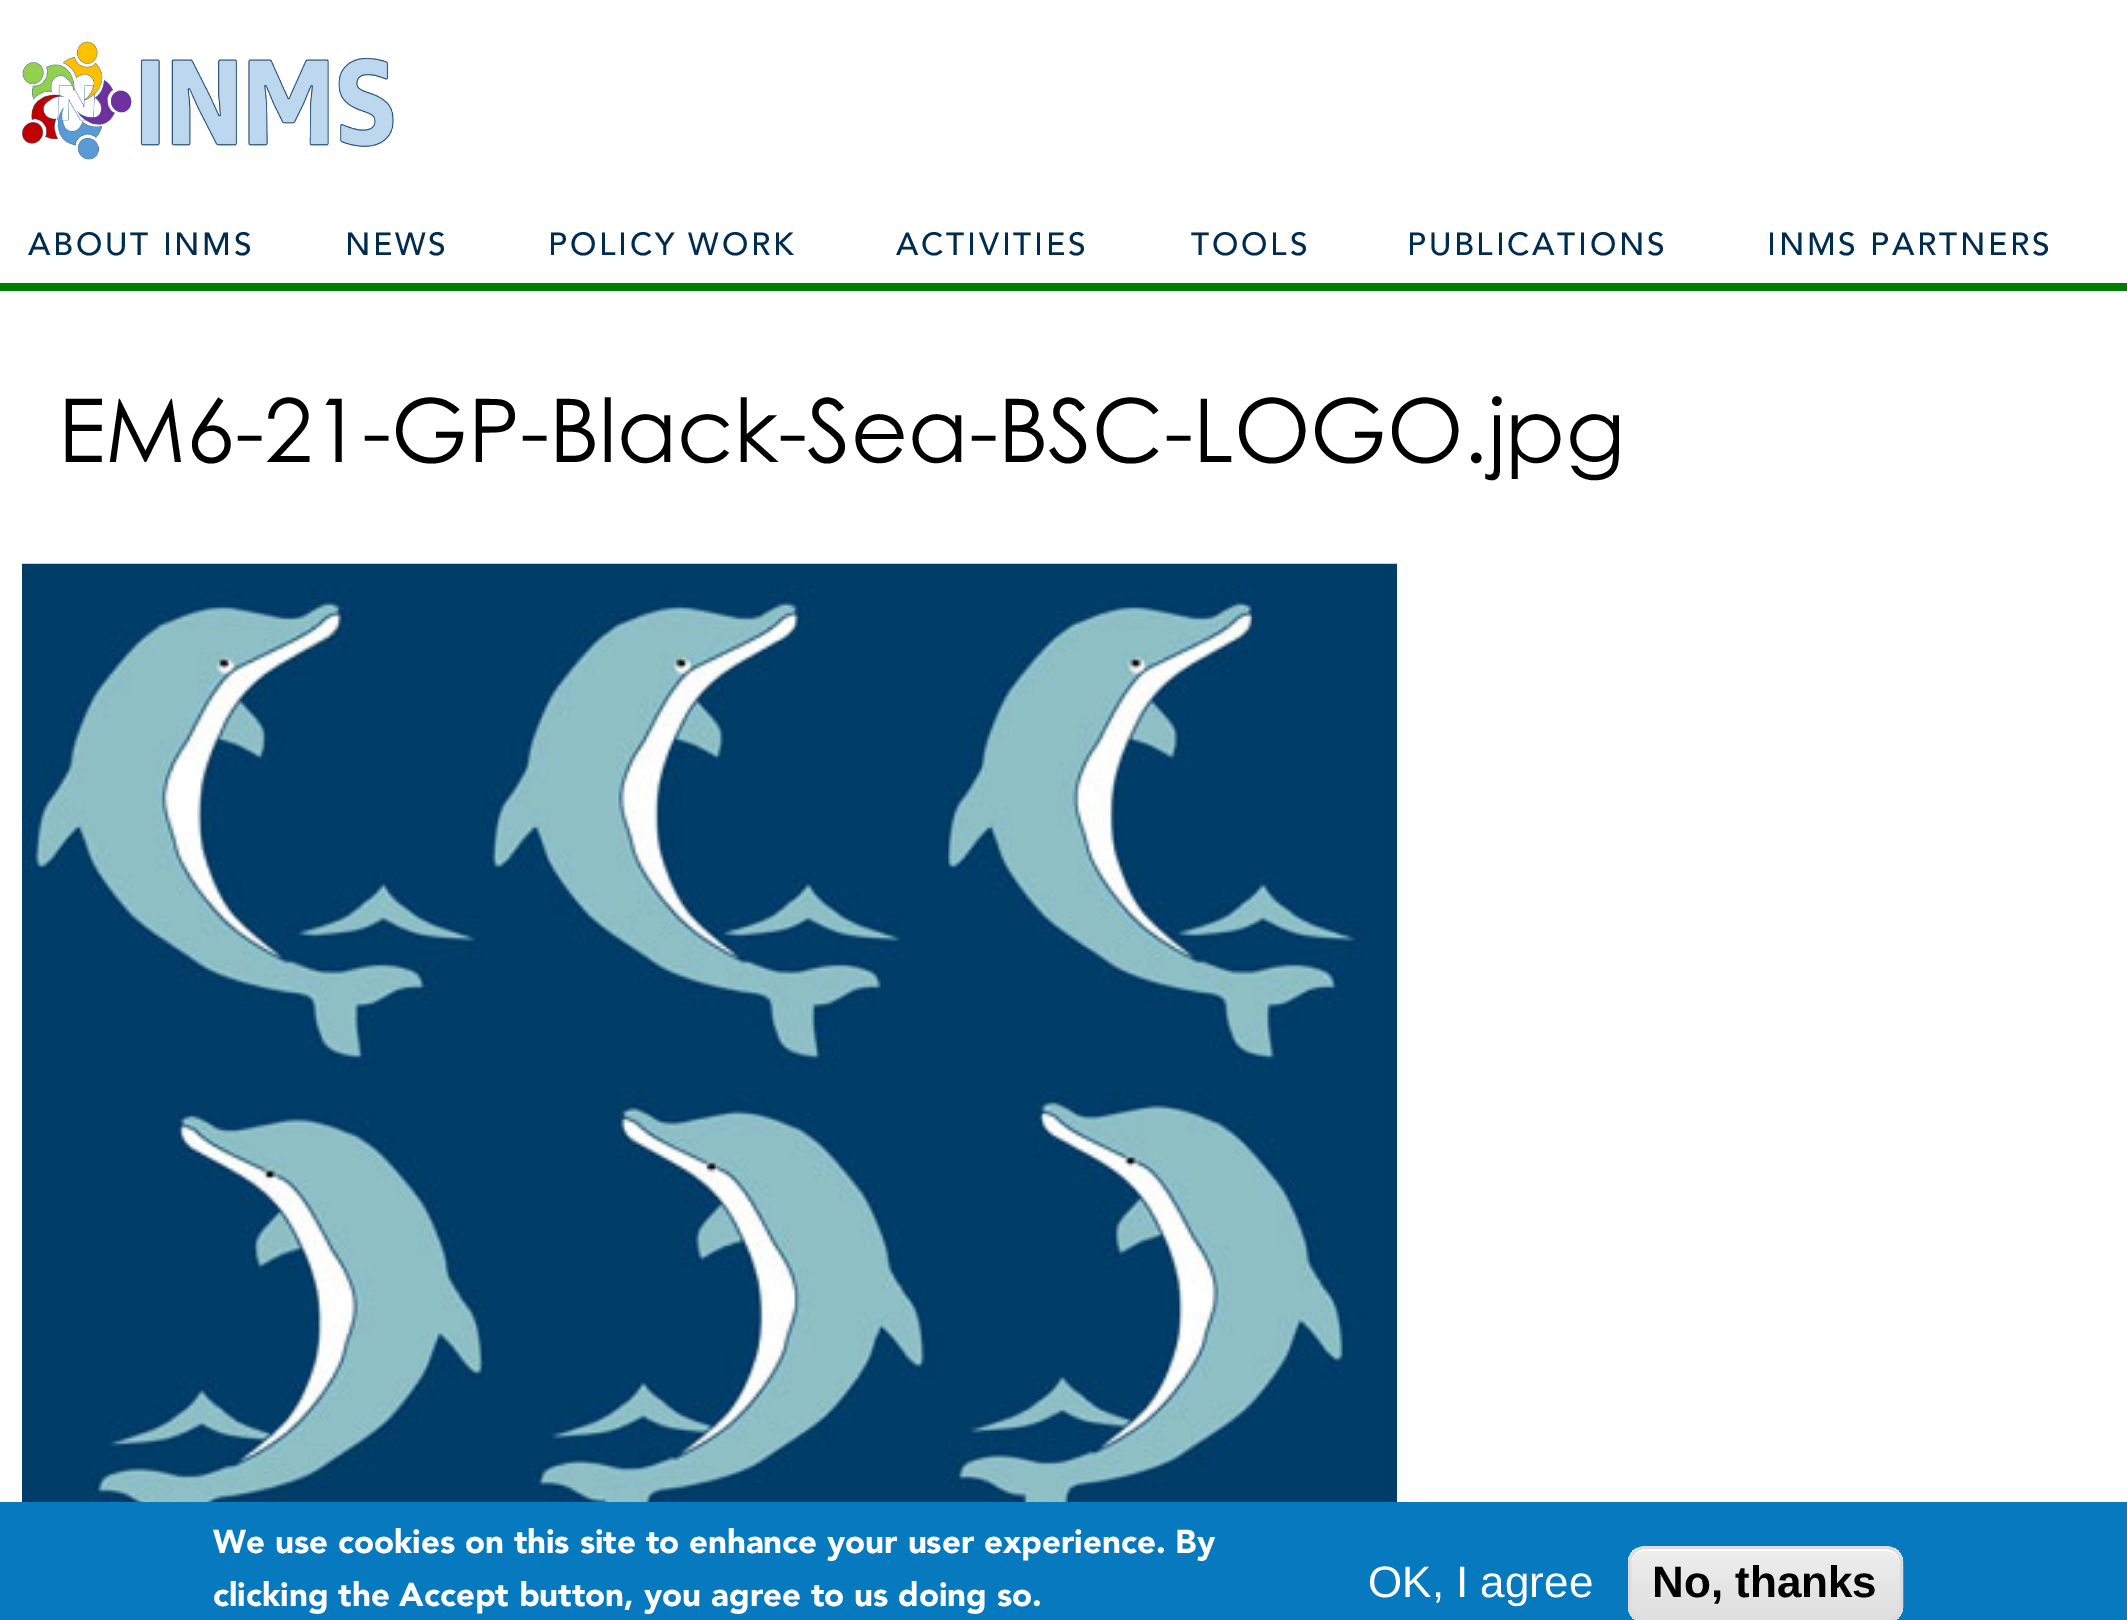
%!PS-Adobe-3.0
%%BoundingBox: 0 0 2127 1620
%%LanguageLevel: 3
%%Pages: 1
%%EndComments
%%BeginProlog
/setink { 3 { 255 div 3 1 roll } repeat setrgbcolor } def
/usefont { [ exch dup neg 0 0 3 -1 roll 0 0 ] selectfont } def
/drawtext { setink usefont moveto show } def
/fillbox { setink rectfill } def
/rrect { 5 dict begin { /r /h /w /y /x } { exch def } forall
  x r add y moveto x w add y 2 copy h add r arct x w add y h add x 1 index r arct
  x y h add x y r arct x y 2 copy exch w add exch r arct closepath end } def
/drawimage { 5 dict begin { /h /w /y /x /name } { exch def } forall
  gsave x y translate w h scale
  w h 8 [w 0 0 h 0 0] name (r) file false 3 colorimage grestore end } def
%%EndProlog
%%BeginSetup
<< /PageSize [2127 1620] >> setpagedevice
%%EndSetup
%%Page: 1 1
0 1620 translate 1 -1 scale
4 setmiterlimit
0 0 2127 1620 255 255 255 fillbox
(assets/img1.rgb) 22 41 372 119 drawimage
0 283 2127 8 0 128 0 fillbox
/Avenir-Medium 31.75 usefont
0 44 80 setink
28 255 moveto 2.75 0 (ABOUT INMS) ashow
345 255 moveto 2.75 0 (NEWS) ashow
548 255 moveto 2.75 0 (POLICY WORK) ashow
896 255 moveto 2.75 0 (ACTIVITIES) ashow
1191 255 moveto 2.75 0 (TOOLS) ashow
1407 255 moveto 2.75 0 (PUBLICATIONS) ashow
1767 255 moveto 2.75 0 (INMS PARTNERS) ashow
(EM6-21-GP-Black-Sea-BSC-LOGO.jpg) 58 462 /CenturyGothic-Regular 88 0 0 0 drawtext
(assets/img2.rgb) 22 563 1375 939 drawimage
0 1502 2127 118 7 121 191 fillbox
(We use cookies on this site to enhance your user experience. By) 213 1553 /Avenir-Black 33 255 255 255 drawtext
(clicking the Accept button, you agree to us doing so.) 213 1606 /Avenir-Black 33 255 255 255 drawtext
(OK, I agree) 1368 1597 /LiberationSans-Regular 44 255 255 255 drawtext
gsave
1628 1546 275 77 17 rrect clip newpath
gsave 1628 1548 moveto 1903 1548 lineto 1903 1620 lineto 1628 1620 lineto closepath clip newpath
<< /ShadingType 2 /ColorSpace /DeviceRGB /Coords [1766 1548 1766 1620] /Extend [true true] /Function << /FunctionType 3 /Domain [0 1] /Functions [<< /FunctionType 2 /Domain [0 1] /C0 [0.929 0.929 0.929] /C1 [0.929 0.929 0.929] /N 1 >> << /FunctionType 2 /Domain [0 1] /C0 [0.929 0.929 0.929] /C1 [0.875 0.875 0.875] /N 1 >>] /Bounds [0.05] /Encode [0 1 0 1] >> >> shfill grestore
grestore
1644 1551 moveto 1886 1551 lineto 1894 1551 1900 1557 1900 1565 curveto 1900 1562 lineto 1900 1554 1894 1548 1886 1548 curveto 1645 1548 lineto 1637 1548 1631 1554 1631 1562 curveto 1631 1565 lineto 1631 1557 1637 1551 1644 1551 curveto closepath fill
220 220 220 setink
3 setlinewidth
1629.5 1547.5 272 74 15.5 rrect stroke
(No, thanks) 1652 1597 /LiberationSans-Bold 44 0 0 0 drawtext
showpage
%%EOF
